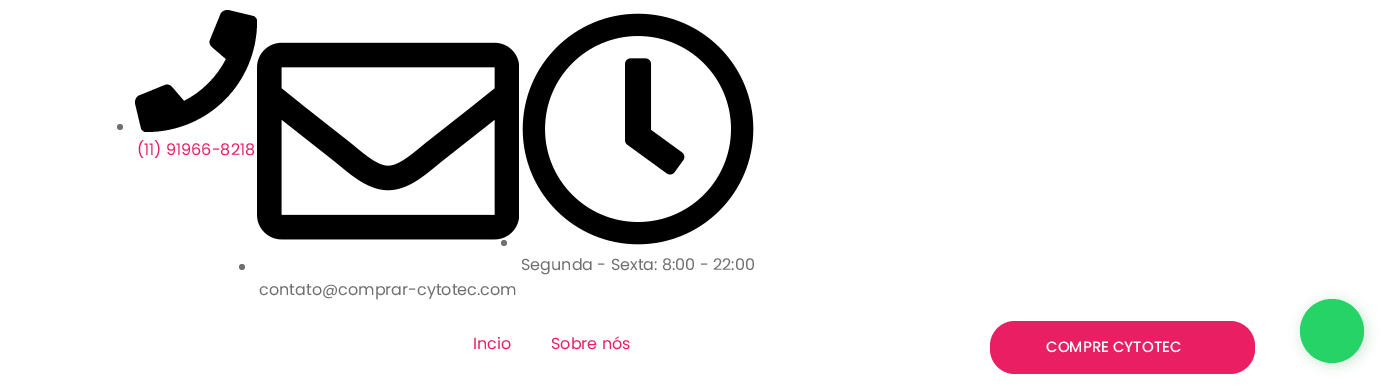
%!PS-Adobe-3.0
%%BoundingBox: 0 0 1389 388
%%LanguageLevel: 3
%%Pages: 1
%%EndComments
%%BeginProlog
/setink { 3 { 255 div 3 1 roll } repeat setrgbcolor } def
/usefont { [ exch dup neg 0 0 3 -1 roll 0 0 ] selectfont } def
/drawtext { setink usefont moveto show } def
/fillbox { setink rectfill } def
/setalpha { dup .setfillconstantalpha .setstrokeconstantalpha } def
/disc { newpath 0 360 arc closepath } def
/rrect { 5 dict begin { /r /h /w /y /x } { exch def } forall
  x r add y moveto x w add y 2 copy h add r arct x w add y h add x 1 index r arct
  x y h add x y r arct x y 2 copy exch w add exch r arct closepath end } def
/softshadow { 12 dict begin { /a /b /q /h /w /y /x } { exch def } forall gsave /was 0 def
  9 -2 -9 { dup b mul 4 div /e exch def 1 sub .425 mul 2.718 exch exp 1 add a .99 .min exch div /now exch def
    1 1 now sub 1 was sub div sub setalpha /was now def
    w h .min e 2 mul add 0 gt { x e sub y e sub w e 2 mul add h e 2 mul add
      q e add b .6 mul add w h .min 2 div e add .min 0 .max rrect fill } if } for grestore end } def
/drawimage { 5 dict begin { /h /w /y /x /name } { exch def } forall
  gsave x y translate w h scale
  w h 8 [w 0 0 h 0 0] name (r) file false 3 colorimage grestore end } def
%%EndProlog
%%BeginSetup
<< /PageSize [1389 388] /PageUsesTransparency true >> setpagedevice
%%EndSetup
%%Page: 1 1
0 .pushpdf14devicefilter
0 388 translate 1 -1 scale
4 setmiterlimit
0 0 1389 388 255 255 255 fillbox
112 112 112 setink
120 127 3 disc fill
(\(11\) 91966-8218) 137 155 /Poppins-Regular 16 233 30 99 drawtext
0 0 0 setink
253 16 moveto 228 10 lineto 225 10 223 11 221 13 curveto 210 40 lineto 209 43 210 45 212 47 curveto 226 59 lineto 217 77 202 92 184 101 curveto 172 87 lineto 170 85 168 84 165 85 curveto 138 96 lineto 136 98 135 100 135 103 curveto 141 128 lineto 141 130 144 132 146 132 curveto 208 132 257 83 257 21 curveto 257 19 255 16 253 16 curveto closepath fill
112 112 112 setink
504 243 3 disc fill
(assets/img1.rgb) 522 13 232 232 drawimage
(Segunda - Sexta: 8:00 - 22:00) 521 270 /Poppins-Regular 16 112 112 112 drawtext
(assets/img2.rgb) 257 42 262 198 drawimage
242 267 3 disc fill
(contato@comprar-cytotec.com) 259 295 /Poppins-Regular 16 112 112 112 drawtext
(Incio) 473 349 /Poppins-Regular 16 233 30 99 drawtext
(Sobre nós) 551 349 /Poppins-Regular 16 233 30 99 drawtext
990 321 265 53 25 rrect fill
(COMPRE CYTOTEC) 1046 352 /Poppins-Medium 15 255 255 255 drawtext
22 124 60 setink
1302 301 64 64 32 6 0.2 softshadow
37 211 102 setink
1332 331 32 disc fill
.poppdf14devicefilter showpage
%%EOF
